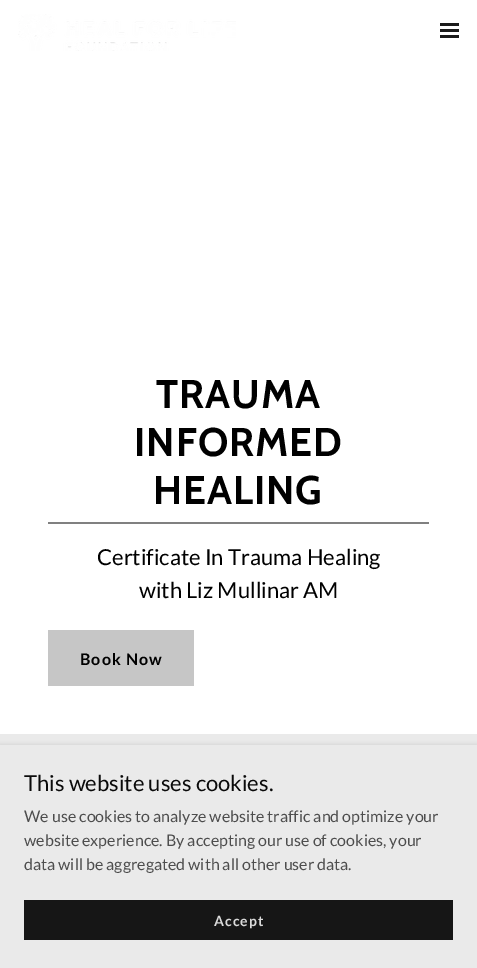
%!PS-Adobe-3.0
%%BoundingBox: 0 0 477 968
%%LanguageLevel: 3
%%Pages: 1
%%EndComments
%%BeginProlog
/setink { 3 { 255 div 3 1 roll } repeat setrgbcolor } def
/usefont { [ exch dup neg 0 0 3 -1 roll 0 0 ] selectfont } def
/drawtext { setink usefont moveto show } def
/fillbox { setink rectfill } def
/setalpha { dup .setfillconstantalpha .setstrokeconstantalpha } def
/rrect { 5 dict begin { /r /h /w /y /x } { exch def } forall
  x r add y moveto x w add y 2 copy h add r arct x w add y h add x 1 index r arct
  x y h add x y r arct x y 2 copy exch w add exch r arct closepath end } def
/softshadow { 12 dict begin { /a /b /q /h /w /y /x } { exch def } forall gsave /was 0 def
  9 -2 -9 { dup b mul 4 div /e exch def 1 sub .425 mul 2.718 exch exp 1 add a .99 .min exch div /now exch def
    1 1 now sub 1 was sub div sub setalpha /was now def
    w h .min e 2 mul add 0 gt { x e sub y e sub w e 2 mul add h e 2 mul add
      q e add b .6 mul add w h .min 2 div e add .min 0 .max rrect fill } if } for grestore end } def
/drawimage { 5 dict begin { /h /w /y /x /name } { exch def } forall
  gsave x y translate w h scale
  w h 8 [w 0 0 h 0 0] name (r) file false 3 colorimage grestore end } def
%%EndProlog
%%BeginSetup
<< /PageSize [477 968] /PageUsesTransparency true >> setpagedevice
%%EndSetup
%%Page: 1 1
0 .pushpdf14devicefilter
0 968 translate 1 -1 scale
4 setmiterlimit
0 0 477 968 255 255 255 fillbox
(assets/img1.rgb) 18 14 218 37 drawimage
440 23 19 3 27 27 27 fillbox
440 29 19 3 27 27 27 fillbox
440 35 19 3 27 27 27 fillbox
48 522 381 2 128 128 128 fillbox
/Cabin-Bold 40 usefont
0 0 0 setink
156 408 moveto 1 0 (TRAUMA) ashow
134 456 moveto 1 0 (INFORMED) ashow
153 504 moveto 1 0 (HEALING) ashow
(Certificate In Trauma Healing) 97 565 /Lato-Regular 22 0 0 0 drawtext
(with Liz Mullinar AM) 139 598 /Lato-Regular 22 0 0 0 drawtext
48 630 146 56 198 198 198 fillbox
/Lato-Bold 16 usefont
0 0 0 setink
80 665 moveto 1 0 (Book Now) ashow
0 734 477 11 234 234 234 fillbox
0 0 0 setink
0 747 477 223 0 3 0.3 softshadow
0 745 477 223 234 234 234 fillbox
(This website uses cookies.) 24 791 /Lato-Regular 22 10 10 10 drawtext
(We use cookies to analyze website traffic and optimize your) 24 822 /Lato-Regular 16 77 77 77 drawtext
(website experience. By accepting our use of cookies, your) 24 846 /Lato-Regular 16 77 77 77 drawtext
(data will be aggregated with all other user data.) 24 870 /Lato-Regular 16 77 77 77 drawtext
24 900 429 40 22 22 22 fillbox
/Lato-Bold 14 usefont
219 219 219 setink
214 926 moveto 1 0 (Accept) ashow
.poppdf14devicefilter showpage
%%EOF
